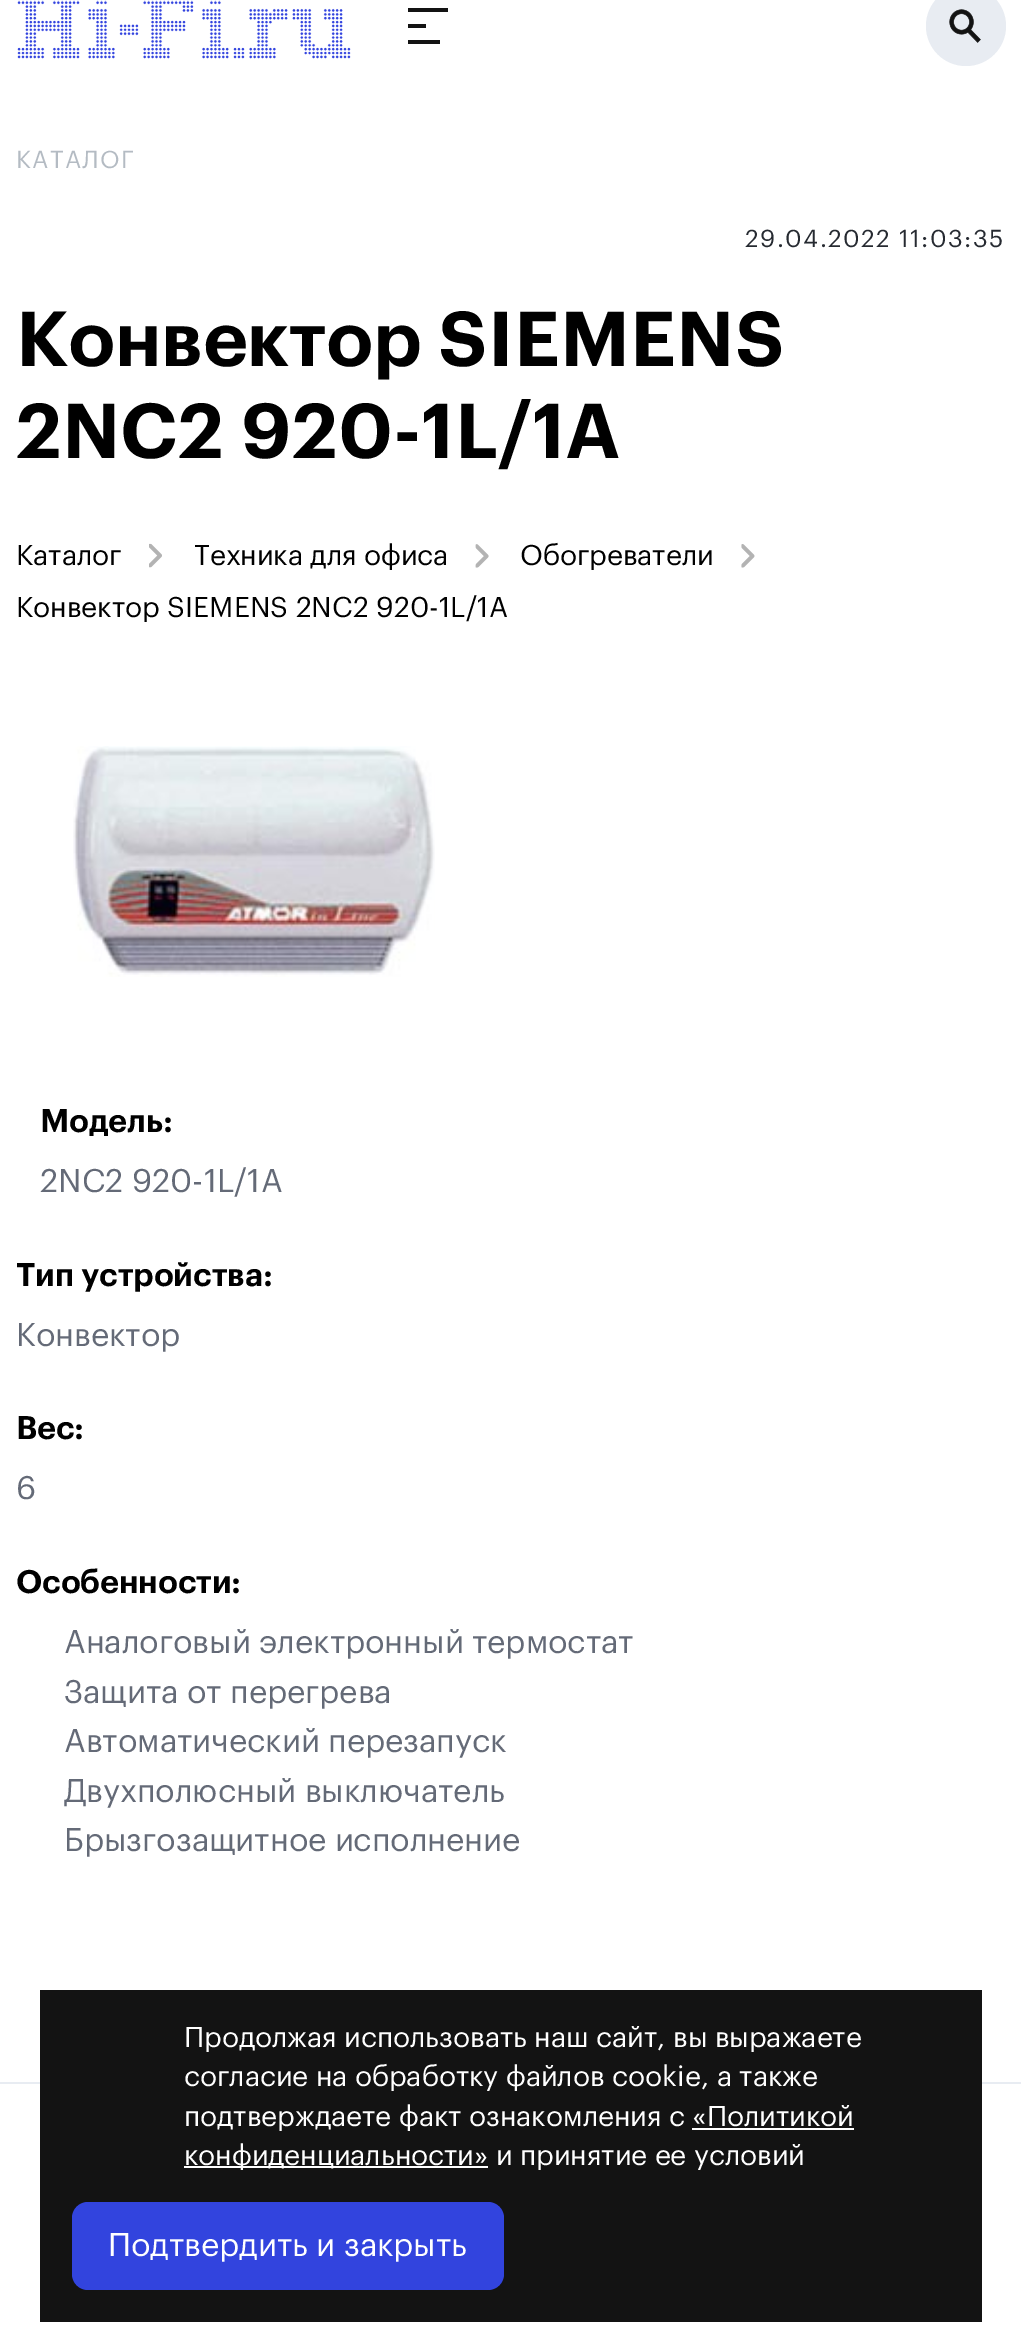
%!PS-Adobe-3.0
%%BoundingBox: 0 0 1021 2337
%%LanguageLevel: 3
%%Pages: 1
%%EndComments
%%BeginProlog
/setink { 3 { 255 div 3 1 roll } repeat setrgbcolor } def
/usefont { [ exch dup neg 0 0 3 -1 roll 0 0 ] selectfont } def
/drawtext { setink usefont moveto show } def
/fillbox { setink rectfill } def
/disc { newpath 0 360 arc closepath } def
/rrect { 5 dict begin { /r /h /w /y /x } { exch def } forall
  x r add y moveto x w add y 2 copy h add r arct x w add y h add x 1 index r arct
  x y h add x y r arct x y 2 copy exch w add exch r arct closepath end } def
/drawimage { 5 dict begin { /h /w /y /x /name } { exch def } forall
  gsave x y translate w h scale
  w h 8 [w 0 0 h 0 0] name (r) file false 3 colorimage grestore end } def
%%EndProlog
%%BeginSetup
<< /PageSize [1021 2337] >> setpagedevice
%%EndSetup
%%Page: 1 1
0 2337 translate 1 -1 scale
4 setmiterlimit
0 0 1021 2337 255 255 255 fillbox
(assets/img1.rgb) 17 0 334 59 drawimage
408 8 40 4 19 19 19 fillbox
408 24 18 4 19 19 19 fillbox
408 40 32 4 19 19 19 fillbox
232 236 242 setink
966 26 40 disc fill
(assets/img2.rgb) 949 9 32 34 drawimage
/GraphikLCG-Regular 24 usefont
180 187 195 setink
16 168 moveto 1.4 0 (КАТАЛОГ) ashow
38 42 49 setink
745 247 moveto 1.4 0 (29.04.2022 11:03:35) ashow
(Конвектор SIEMENS) 16 366 /GraphikLCG-SemiBold 76 0 0 0 drawtext
(2NC2 920-1L/1A) 16 458 /GraphikLCG-SemiBold 76 0 0 0 drawtext
(Каталог) 16 565 /GraphikLCG-Regular 28 0 0 0 drawtext
(assets/img3.rgb) 149 543 13 25 drawimage
(Техника для офиса) 194 565 /GraphikLCG-Regular 28 0 0 0 drawtext
(assets/img4.rgb) 475 544 14 24 drawimage
(Обогреватели) 520 565 /GraphikLCG-Regular 28 0 0 0 drawtext
(assets/img5.rgb) 741 544 14 24 drawimage
(Конвектор SIEMENS 2NC2 920-1L/1A) 16 617 /GraphikLCG-Regular 28 0 0 0 drawtext
(assets/img6.rgb) 73 746 362 231 drawimage
(Модель:) 40 1132 /GraphikLCG-SemiBold 32 0 0 0 drawtext
(2NC2 920-1L/1A) 40 1192 /GraphikLCG-Regular 32 100 106 119 drawtext
(Тип устройства:) 16 1286 /GraphikLCG-SemiBold 32 0 0 0 drawtext
(Конвектор) 16 1346 /GraphikLCG-Regular 32 100 106 119 drawtext
(Вес:) 16 1439 /GraphikLCG-SemiBold 32 0 0 0 drawtext
(6) 16 1499 /GraphikLCG-Regular 32 100 106 119 drawtext
(Особенности:) 16 1593 /GraphikLCG-SemiBold 32 0 0 0 drawtext
(Аналоговый электронный термостат) 64 1653 /GraphikLCG-Regular 32 100 106 119 drawtext
(Защита от перегрева) 64 1703 /GraphikLCG-Regular 32 100 106 119 drawtext
(Автоматический перезапуск) 64 1752 /GraphikLCG-Regular 32 100 106 119 drawtext
(Двухполюсный выключатель) 64 1802 /GraphikLCG-Regular 32 100 106 119 drawtext
(Брызгозащитное исполнение) 64 1851 /GraphikLCG-Regular 32 100 106 119 drawtext
0 2082 1021 2 232 236 242 fillbox
40 1990 942 332 19 19 19 fillbox
(Продолжая использовать наш сайт, вы выражаете) 184 2047 /GraphikLCG-Regular 28 255 255 255 drawtext
(согласие на обработку файлов cookie, а также) 184 2086 /GraphikLCG-Regular 28 255 255 255 drawtext
(подтверждаете факт ознакомления с «Политикой) 184 2126 /GraphikLCG-Regular 28 255 255 255 drawtext
184 2166 304 2 255 255 255 fillbox
(конфиденциальности» и принятие ее условий) 184 2165 /GraphikLCG-Regular 28 255 255 255 drawtext
692 2128 162 2 255 255 255 fillbox
50 68 222 setink
72 2202 432 88 16 rrect fill
(Подтвердить и закрыть) 108 2256 /GraphikLCG-Regular 32 255 255 255 drawtext
showpage
%%EOF
